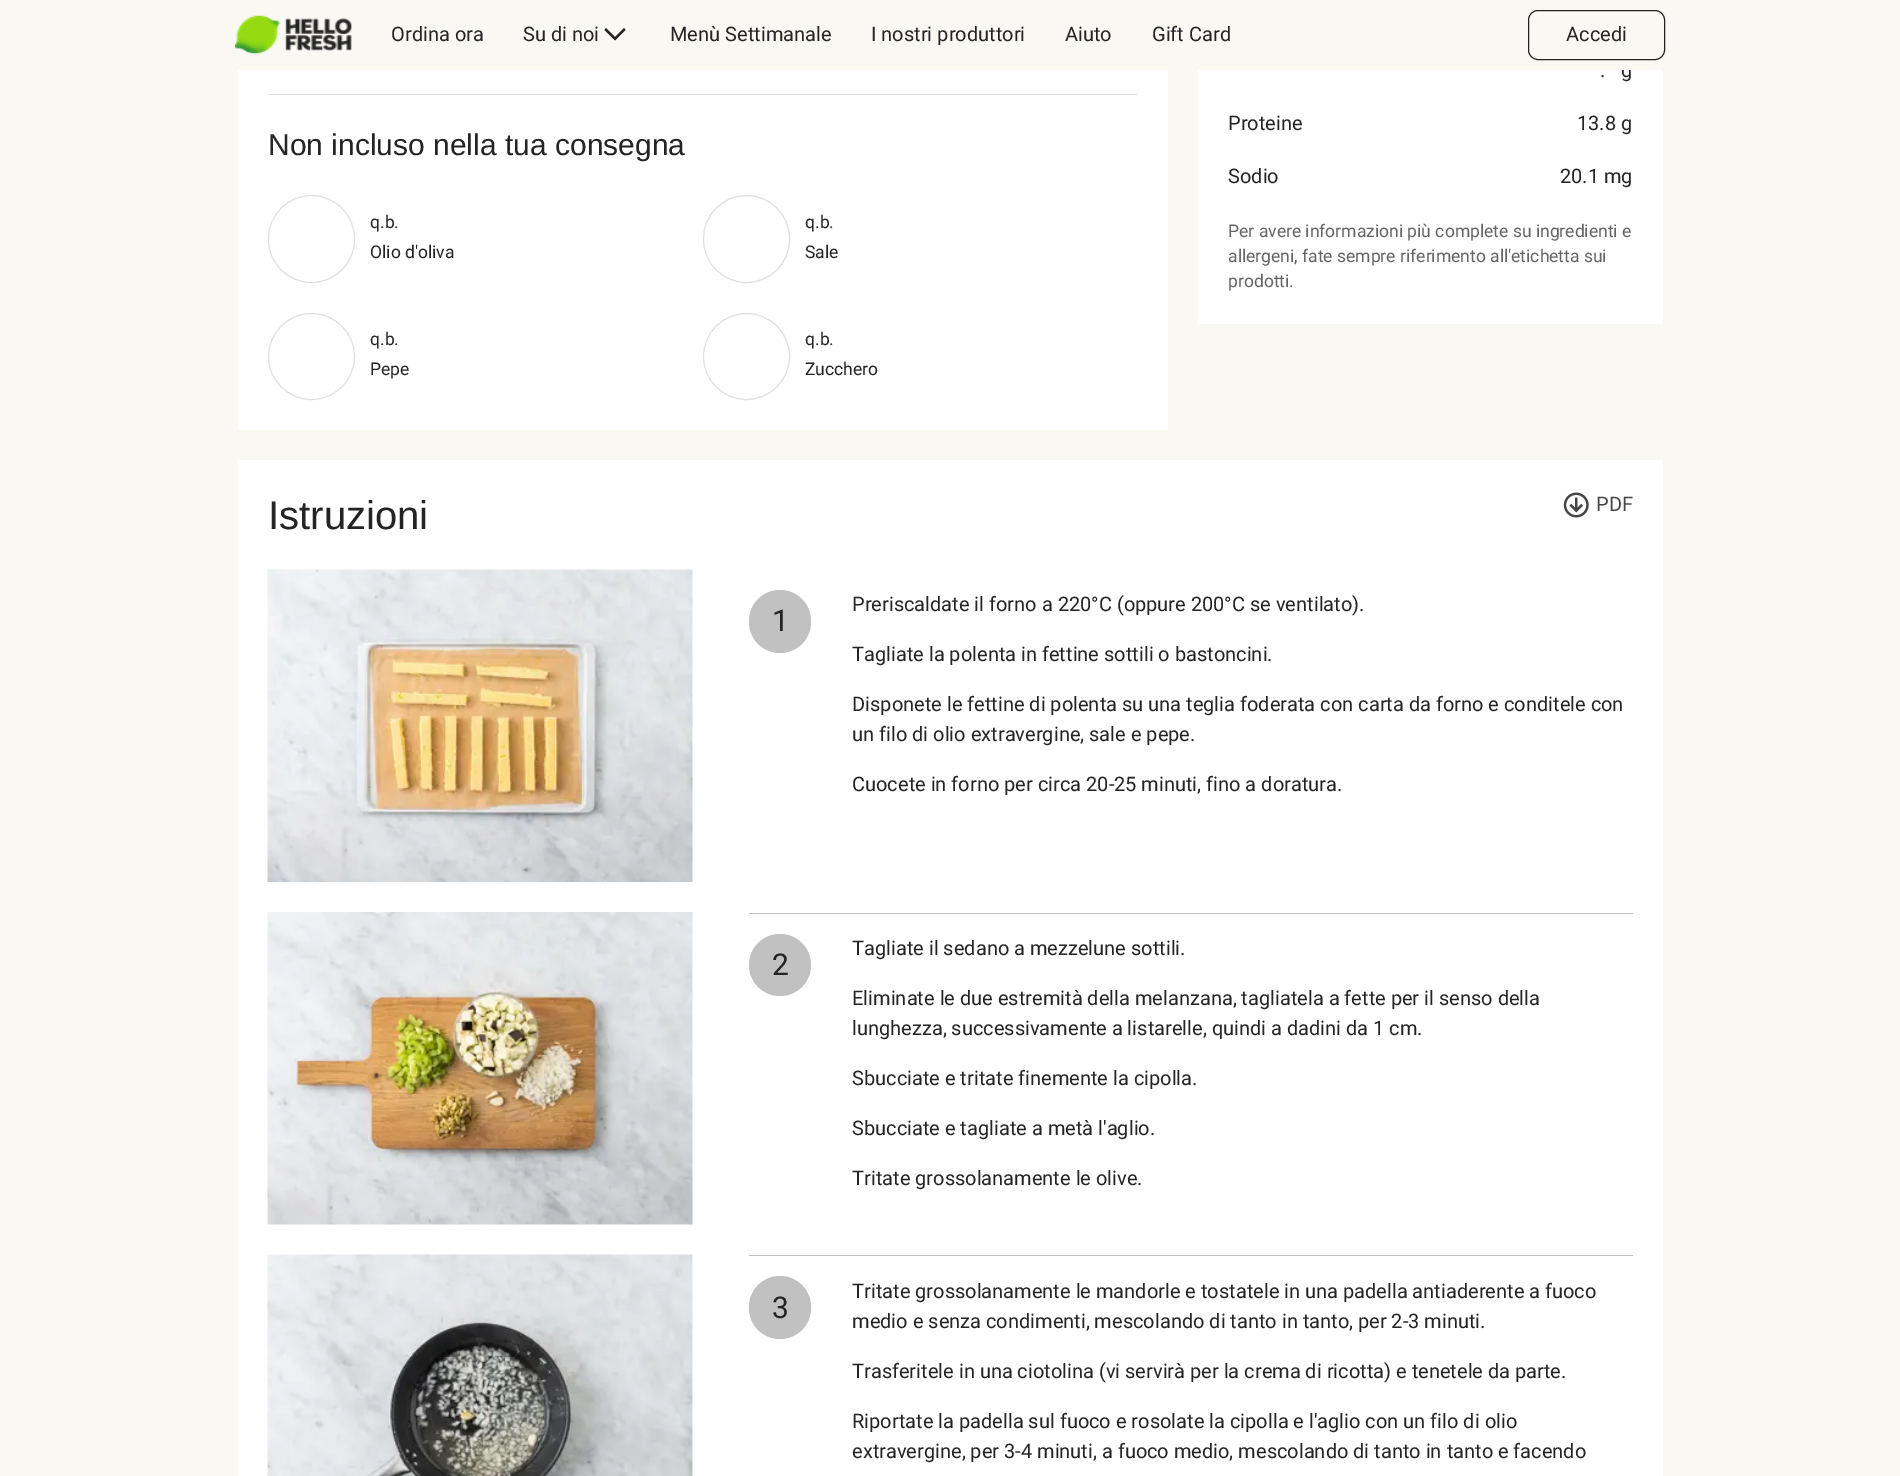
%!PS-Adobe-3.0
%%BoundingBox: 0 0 1900 1476
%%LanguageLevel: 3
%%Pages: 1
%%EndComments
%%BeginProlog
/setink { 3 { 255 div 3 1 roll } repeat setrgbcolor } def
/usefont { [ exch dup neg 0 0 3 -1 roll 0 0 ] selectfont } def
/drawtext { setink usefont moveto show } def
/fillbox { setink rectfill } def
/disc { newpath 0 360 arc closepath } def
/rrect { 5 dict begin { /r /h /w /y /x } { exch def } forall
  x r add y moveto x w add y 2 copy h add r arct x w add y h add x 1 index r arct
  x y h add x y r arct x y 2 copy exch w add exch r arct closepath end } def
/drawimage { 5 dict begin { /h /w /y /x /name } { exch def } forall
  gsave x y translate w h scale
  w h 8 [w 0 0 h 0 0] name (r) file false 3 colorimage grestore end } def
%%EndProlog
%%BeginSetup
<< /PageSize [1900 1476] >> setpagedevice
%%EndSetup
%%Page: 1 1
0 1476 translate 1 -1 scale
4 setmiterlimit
0 0 1900 1476 250 248 243 fillbox
1198 70 465 254 255 255 255 fillbox
(g) 1621 77 /Roboto-Regular 20 36 36 36 drawtext
1622 66 10 4 250 248 243 fillbox
(assets/img1.rgb) 235 15 117 39 drawimage
(Ordina ora) 391 41 /Roboto-Regular 20 36 36 36 drawtext
(Su di noi) 523 41 /Roboto-Regular 20 36 36 36 drawtext
615 40.5 moveto 625.5 30 lineto 624 28 lineto 615 37 lineto 606 28 lineto 604.5 30 lineto closepath eofill
(Menù Settimanale) 670 41 /Roboto-Regular 20 36 36 36 drawtext
(I nostri produttori) 871 41 /Roboto-Regular 20 36 36 36 drawtext
(Aiuto) 1065 41 /Roboto-Regular 20 36 36 36 drawtext
(Gift Card) 1152 41 /Roboto-Regular 20 36 36 36 drawtext
35 35 35 setink
1528.5 10.5 136 49 9.5 rrect stroke
(Accedi) 1566 41 /Roboto-Regular 20 36 36 36 drawtext
238 70 930 360 255 255 255 fillbox
268 94 870 1 224 224 224 fillbox
(Non incluso nella tua consegna) 268 155 /LiberationSans-Regular 30 36 36 36 drawtext
224 224 224 setink
268.5 195.5 86 87 43 rrect stroke
(q.b.) 370 228 /Roboto-Regular 17.5 36 36 36 drawtext
(Olio d'oliva) 370 258 /Roboto-Regular 17.5 36 36 36 drawtext
224 224 224 setink
703.5 195.5 86 87 43 rrect stroke
(q.b.) 805 228 /Roboto-Regular 17.5 36 36 36 drawtext
(Sale) 805 258 /Roboto-Regular 17.5 36 36 36 drawtext
224 224 224 setink
311.5 356.5 43 disc stroke
(q.b.) 370 345 /Roboto-Regular 17.5 36 36 36 drawtext
(Pepe) 370 375 /Roboto-Regular 17.5 36 36 36 drawtext
224 224 224 setink
746.5 356.5 43 disc stroke
(q.b.) 805 345 /Roboto-Regular 17.5 36 36 36 drawtext
(Zucchero) 805 375 /Roboto-Regular 17.5 36 36 36 drawtext
(.) 1600 77 /Roboto-Regular 20 36 36 36 drawtext
(Proteine) 1228 130 /Roboto-Regular 20 36 36 36 drawtext
(13.8 g) 1577 130 /Roboto-Regular 20 36 36 36 drawtext
(Sodio) 1228 183 /Roboto-Regular 20 36 36 36 drawtext
(20.1 mg) 1560 183 /Roboto-Regular 20 36 36 36 drawtext
(Per avere informazioni più complete su ingredienti e) 1228 237 /Roboto-Regular 17.5 101 101 101 drawtext
(allergeni, fate sempre riferimento all'etichetta sui) 1228 262 /Roboto-Regular 17.5 101 101 101 drawtext
(prodotti.) 1228 287 /Roboto-Regular 17.5 101 101 101 drawtext
238 460 1425 1016 255 255 255 fillbox
(Istruzioni) 268 529 /LiberationSans-Regular 40 36 36 36 drawtext
(assets/img2.rgb) 1563 492 26 26 drawimage
(PDF) 1596 511 /Roboto-Regular 20 69 69 69 drawtext
(assets/img3.rgb) 267 569 426 313 drawimage
193 193 193 setink
749 590 62 63 31 rrect fill
(1) 772 631 /Roboto-Regular 30 36 36 36 drawtext
(Preriscaldate il forno a 220°C \(oppure 200°C se ventilato\).) 852 611 /Roboto-Regular 20 36 36 36 drawtext
(Tagliate la polenta in fettine sottili o bastoncini.) 852 661 /Roboto-Regular 20 36 36 36 drawtext
(Disponete le fettine di polenta su una teglia foderata con carta da forno e conditele con) 852 711 /Roboto-Regular 20 36 36 36 drawtext
(un filo di olio extravergine, sale e pepe.) 852 741 /Roboto-Regular 20 36 36 36 drawtext
(Cuocete in forno per circa 20-25 minuti, fino a doratura.) 852 791 /Roboto-Regular 20 36 36 36 drawtext
(assets/img4.rgb) 267 912 426 313 drawimage
749 913 884 1 193 193 193 fillbox
780 965 31 disc fill
(2) 772 975 /Roboto-Regular 30 36 36 36 drawtext
(Tagliate il sedano a mezzelune sottili.) 852 955 /Roboto-Regular 20 36 36 36 drawtext
(Eliminate le due estremità della melanzana, tagliatela a fette per il senso della) 852 1005 /Roboto-Regular 20 36 36 36 drawtext
(lunghezza, successivamente a listarelle, quindi a dadini da 1 cm.) 852 1035 /Roboto-Regular 20 36 36 36 drawtext
(Sbucciate e tritate finemente la cipolla.) 852 1085 /Roboto-Regular 20 36 36 36 drawtext
(Sbucciate e tagliate a metà l'aglio.) 852 1135 /Roboto-Regular 20 36 36 36 drawtext
(Tritate grossolanamente le olive.) 852 1185 /Roboto-Regular 20 36 36 36 drawtext
(assets/img5.rgb) 267 1254 426 222 drawimage
749 1255 884 1 193 193 193 fillbox
749 1276 62 63 31 rrect fill
(3) 772 1318 /Roboto-Regular 30 36 36 36 drawtext
(Tritate grossolanamente le mandorle e tostatele in una padella antiaderente a fuoco) 852 1298 /Roboto-Regular 20 36 36 36 drawtext
(medio e senza condimenti, mescolando di tanto in tanto, per 2-3 minuti.) 852 1328 /Roboto-Regular 20 36 36 36 drawtext
(Trasferitele in una ciotolina \(vi servirà per la crema di ricotta\) e tenetele da parte.) 852 1378 /Roboto-Regular 20 36 36 36 drawtext
(Riportate la padella sul fuoco e rosolate la cipolla e l'aglio con un filo di olio) 852 1428 /Roboto-Regular 20 36 36 36 drawtext
(extravergine, per 3-4 minuti, a fuoco medio, mescolando di tanto in tanto e facendo) 852 1458 /Roboto-Regular 20 36 36 36 drawtext
showpage
%%EOF
